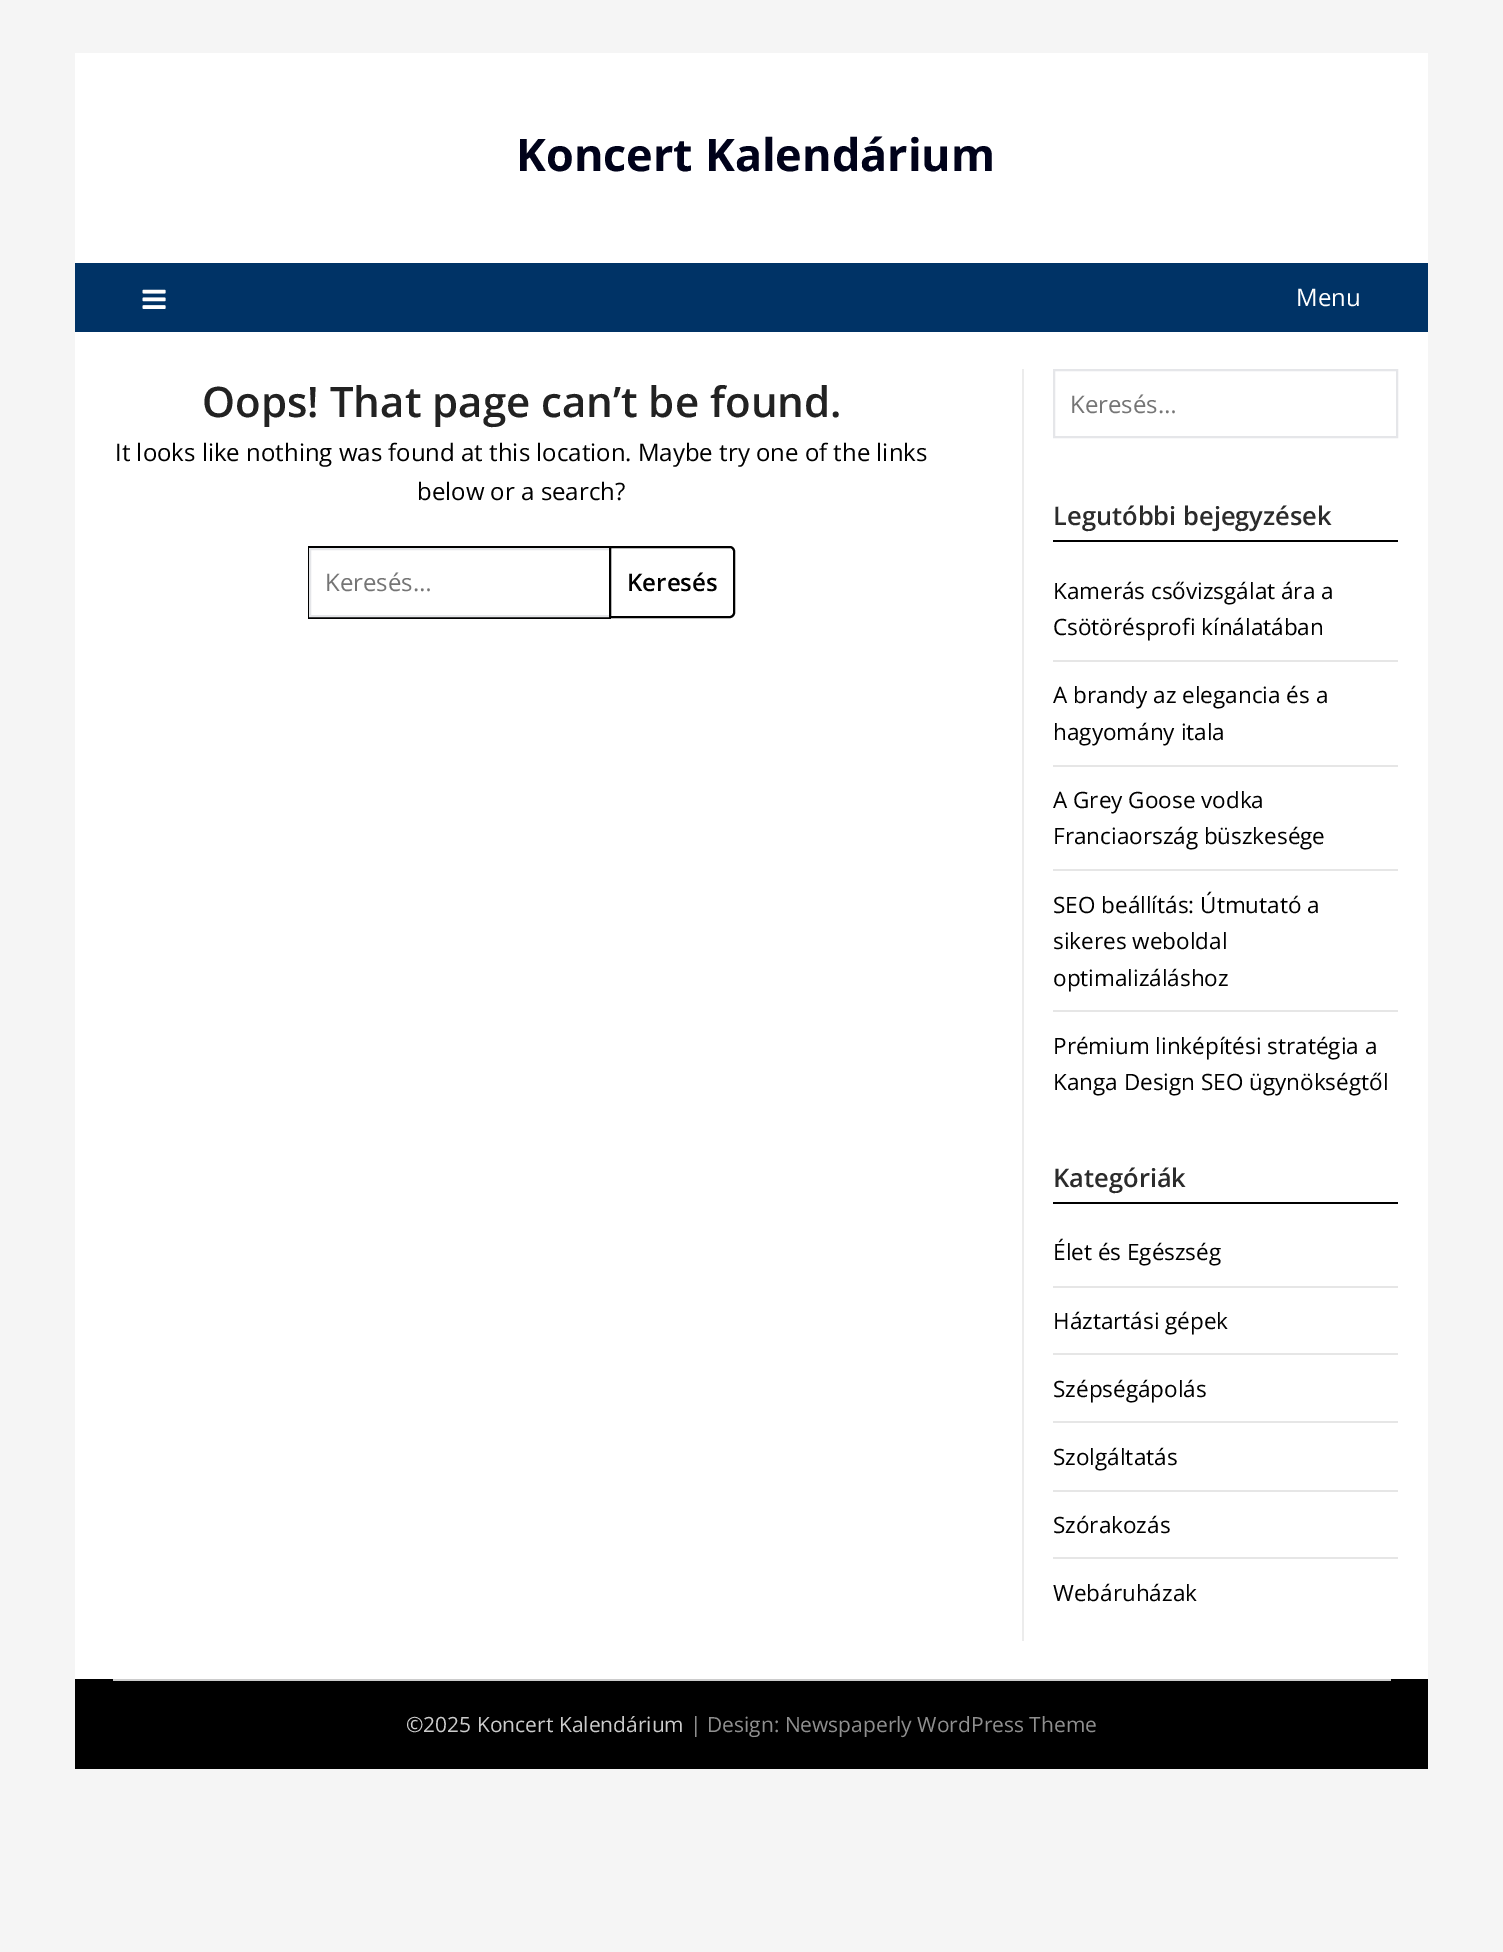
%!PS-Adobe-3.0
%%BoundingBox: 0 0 1503 1952
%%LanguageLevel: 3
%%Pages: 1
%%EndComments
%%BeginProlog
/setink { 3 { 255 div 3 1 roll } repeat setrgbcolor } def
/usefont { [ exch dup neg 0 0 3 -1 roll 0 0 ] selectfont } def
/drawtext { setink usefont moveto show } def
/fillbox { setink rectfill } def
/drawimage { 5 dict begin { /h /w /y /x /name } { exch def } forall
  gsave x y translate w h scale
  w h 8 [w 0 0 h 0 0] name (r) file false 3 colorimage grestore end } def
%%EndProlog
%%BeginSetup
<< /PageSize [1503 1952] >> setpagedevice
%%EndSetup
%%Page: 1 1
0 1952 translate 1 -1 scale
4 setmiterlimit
0 0 1503 1952 245 245 245 fillbox
75 53 1353 210 255 255 255 fillbox
(Koncert Kalendárium) 516 171 /OpenSans-Bold 45 0 2 26 drawtext
75 263 1353 69 0 51 102 fillbox
(assets/img1.rgb) 142 289 24 20 drawimage
(Menu) 1296 306 /OpenSans-Regular 24 255 255 255 drawtext
75 332 1353 1347 255 255 255 fillbox
(Oops! That page can’t be found.) 202 417 /OpenSans-SemiBold 42 34 34 34 drawtext
(It looks like nothing was found at this location. Maybe try one of the links) 115 461 /OpenSans-Regular 24 0 0 0 drawtext
(below or a search?) 417 500 /OpenSans-Regular 24 0 0 0 drawtext
308 546 303 2 0 0 0 fillbox
308 617 303 2 0 0 0 fillbox
308 546 2 72 0 0 0 fillbox
229 230 233 setink
2 setlinewidth
310 549 300 67 rectstroke
(Keresés…) 325 591 /OpenSans-Regular 24 117 117 117 drawtext
0 0 0 setink
610 547 moveto 730 547 lineto 732 547 734 549 734 551 curveto 734 613 lineto 734 615 732 617 730 617 curveto 610 617 lineto closepath stroke
(Keresés) 627 591 /OpenSans-SemiBold 24 0 0 0 drawtext
1022 369 2 1272 236 236 236 fillbox
229 230 233 setink
1054 370 343 67 rectstroke
(Keresés…) 1070 413 /OpenSans-Regular 24 117 117 117 drawtext
1053 540 345 2 0 0 0 fillbox
(Legutóbbi bejegyzések) 1053 525 /OpenSans-SemiBold 25.5 43 43 43 drawtext
1053 660 345 2 230 230 230 fillbox
(Kamerás csővizsgálat ára a) 1053 599 /OpenSans-Regular 22.5 0 0 0 drawtext
(Csötörésprofi kínálatában) 1053 635 /OpenSans-Regular 22.5 0 0 0 drawtext
1053 765 345 2 230 230 230 fillbox
(A brandy az elegancia és a) 1053 703 /OpenSans-Regular 22.5 0 0 0 drawtext
(hagyomány itala) 1053 740 /OpenSans-Regular 22.5 0 0 0 drawtext
1053 869 345 2 230 230 230 fillbox
(A Grey Goose vodka) 1053 808 /OpenSans-Regular 22.5 0 0 0 drawtext
(Franciaország büszkesége) 1053 844 /OpenSans-Regular 22.5 0 0 0 drawtext
1053 1010 345 2 230 230 230 fillbox
(SEO beállítás: Útmutató a) 1053 913 /OpenSans-Regular 22.5 0 0 0 drawtext
(sikeres weboldal) 1053 949 /OpenSans-Regular 22.5 0 0 0 drawtext
(optimalizáláshoz) 1053 986 /OpenSans-Regular 22.5 0 0 0 drawtext
(Prémium linképítési stratégia a) 1053 1054 /OpenSans-Regular 22.5 0 0 0 drawtext
(Kanga Design SEO ügynökségtől) 1053 1090 /OpenSans-Regular 22.5 0 0 0 drawtext
1053 1202 345 2 0 0 0 fillbox
(Kategóriák) 1053 1187 /OpenSans-SemiBold 25.5 43 43 43 drawtext
1053 1286 345 2 230 230 230 fillbox
(Élet és Egészség) 1053 1260 /OpenSans-Regular 22.5 0 0 0 drawtext
1053 1353 345 2 230 230 230 fillbox
(Háztartási gépek) 1053 1329 /OpenSans-Regular 22.5 0 0 0 drawtext
1053 1421 345 2 230 230 230 fillbox
(Szépségápolás) 1053 1397 /OpenSans-Regular 22.5 0 0 0 drawtext
1053 1490 345 2 230 230 230 fillbox
(Szolgáltatás) 1053 1465 /OpenSans-Regular 22.5 0 0 0 drawtext
1053 1557 345 2 230 230 230 fillbox
(Szórakozás) 1053 1533 /OpenSans-Regular 22.5 0 0 0 drawtext
(Webáruházak) 1053 1601 /OpenSans-Regular 22.5 0 0 0 drawtext
75 1679 1353 90 0 0 0 fillbox
113 1679 1278 2 204 204 204 fillbox
(©2025 Koncert Kalendárium) 406 1732 /OpenSans-Regular 21 204 204 204 drawtext
(| Design: Newspaperly WordPress Theme) 690 1732 /OpenSans-Regular 21 143 143 143 drawtext
showpage
%%EOF
